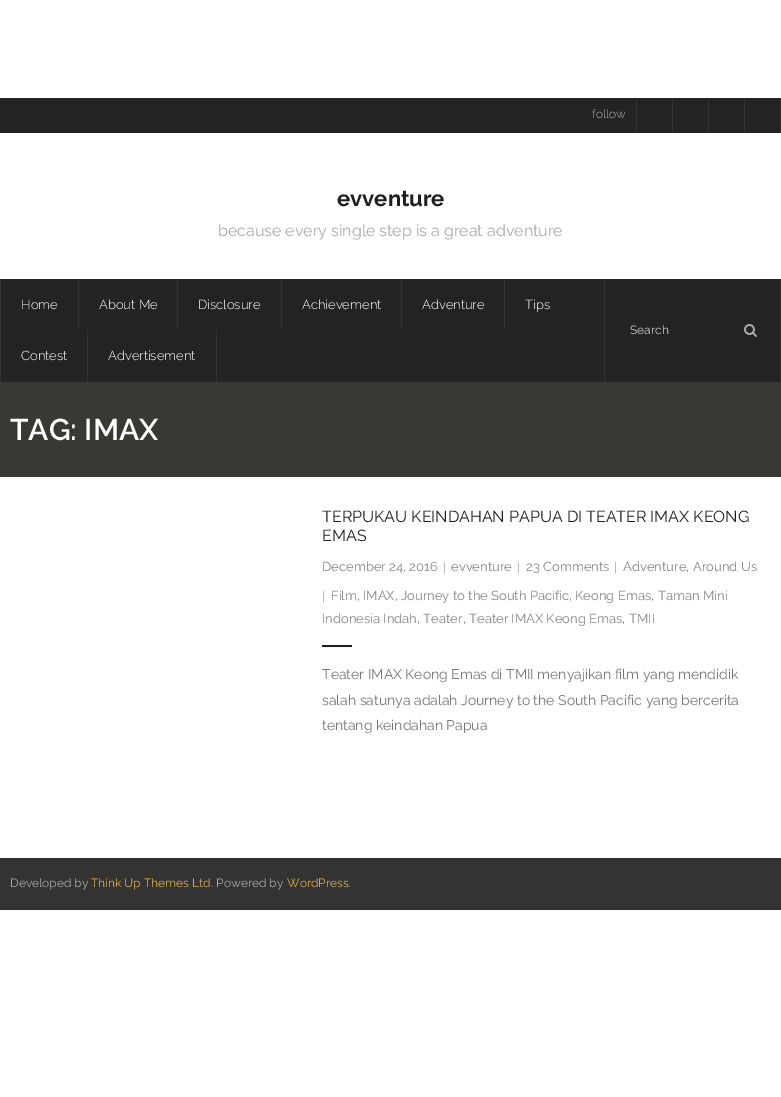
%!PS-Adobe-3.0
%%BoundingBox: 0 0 781 1097
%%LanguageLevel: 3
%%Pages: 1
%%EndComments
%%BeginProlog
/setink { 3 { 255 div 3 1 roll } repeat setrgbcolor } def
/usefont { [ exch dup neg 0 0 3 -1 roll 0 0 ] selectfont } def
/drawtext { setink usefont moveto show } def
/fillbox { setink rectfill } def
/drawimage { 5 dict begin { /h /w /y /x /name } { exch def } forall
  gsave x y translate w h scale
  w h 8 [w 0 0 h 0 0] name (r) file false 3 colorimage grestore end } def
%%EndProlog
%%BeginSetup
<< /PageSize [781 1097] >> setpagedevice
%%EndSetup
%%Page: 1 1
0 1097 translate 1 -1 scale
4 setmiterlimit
0 0 781 1097 255 255 255 fillbox
0 98 780 35 35 35 35 fillbox
(follow) 592 118 /Raleway-Light 12 179 179 179 drawtext
636 98 1 35 51 51 51 fillbox
672 98 1 35 51 51 51 fillbox
708 98 1 35 51 51 51 fillbox
780 98 1 35 51 51 51 fillbox
744 98 1 35 51 51 51 fillbox
(evventure) 337 206 /Raleway-Bold 22 30 30 30 drawtext
(because every single step is a great adventure) 218 236 /Raleway-Regular 16 170 170 170 drawtext
1 279 779 103 35 35 35 fillbox
0 279 1 103 51 51 51 fillbox
(Home) 21 309 /Raleway-Light 13 255 255 255 drawtext
78 279 1 51 51 51 51 fillbox
(About Me) 99 309 /Raleway-Light 13 255 255 255 drawtext
177 279 1 51 51 51 51 fillbox
(Disclosure) 198 309 /Raleway-Light 13 255 255 255 drawtext
281 279 1 51 51 51 51 fillbox
(Achievement) 302 309 /Raleway-Light 13 255 255 255 drawtext
401 279 1 51 51 51 51 fillbox
(Adventure) 422 309 /Raleway-Light 13 255 255 255 drawtext
504 279 1 51 51 51 51 fillbox
(Tips) 525 309 /Raleway-Light 13 255 255 255 drawtext
(Contest) 21 360 /Raleway-Light 13 255 255 255 drawtext
216 330 1 52 51 51 51 fillbox
87 330 1 52 51 51 51 fillbox
(Advertisement) 108 360 /Raleway-Light 13 255 255 255 drawtext
780 279 1 103 51 51 51 fillbox
604 279 1 103 51 51 51 fillbox
(Search) 630 334 /Raleway-Regular 12 202 202 202 drawtext
(assets/img1.rgb) 744 324 13 13 drawimage
0 382 781 95 58 56 53 fillbox
(TAG: IMAX) 10 440 /Raleway-SemiBold 30 255 255 255 drawtext
(TERPUKAU KEINDAHAN PAPUA DI TEATER IMAX KEONG) 322 522 /Raleway-Regular 16 30 30 30 drawtext
(EMAS) 322 541 /Raleway-Regular 16 30 30 30 drawtext
(December 24, 2016) 322 571 /Raleway-Regular 13 133 133 133 drawtext
(|) 443 571 /LiberationSerif-Regular 13 133 133 133 drawtext
(evventure) 451 571 /Raleway-Regular 13 133 133 133 drawtext
(|) 517 571 /LiberationSerif-Regular 13 133 133 133 drawtext
(23 Comments) 526 571 /Raleway-Regular 13 133 133 133 drawtext
(|) 614 571 /LiberationSerif-Regular 13 133 133 133 drawtext
(Adventure) 623 571 /Raleway-Regular 13 133 133 133 drawtext
(,) 686 571 /Raleway-Regular 13 119 119 119 drawtext
(Around Us) 693 571 /Raleway-Regular 13 133 133 133 drawtext
(|) 322 600 /LiberationSerif-Regular 13 133 133 133 drawtext
(Film) 331 600 /Raleway-Regular 13 133 133 133 drawtext
(,) 357 600 /Raleway-Regular 13 119 119 119 drawtext
(IMAX) 363 600 /Raleway-Regular 13 133 133 133 drawtext
(,) 395 600 /Raleway-Regular 13 119 119 119 drawtext
(Journey to the South Pacific) 401 600 /Raleway-Regular 13 133 133 133 drawtext
(,) 569 600 /Raleway-Regular 13 119 119 119 drawtext
(Keong Emas) 575 600 /Raleway-Regular 13 133 133 133 drawtext
(,) 651 600 /Raleway-Regular 13 119 119 119 drawtext
(Taman Mini) 658 600 /Raleway-Regular 13 133 133 133 drawtext
(Indonesia Indah) 322 623 /Raleway-Regular 13 133 133 133 drawtext
(,) 417 623 /Raleway-Regular 13 119 119 119 drawtext
(Teater) 423 623 /Raleway-Regular 13 133 133 133 drawtext
(,) 463 623 /Raleway-Regular 13 119 119 119 drawtext
(Teater IMAX Keong Emas) 469 623 /Raleway-Regular 13 133 133 133 drawtext
(,) 622 623 /Raleway-Regular 13 119 119 119 drawtext
(TMII) 629 623 /Raleway-Regular 13 133 133 133 drawtext
322 645 30 2 30 30 30 fillbox
(Teater IMAX Keong Emas di TMII menyajikan film yang mendidik) 322 679 /Raleway-Regular 14 119 119 119 drawtext
(salah satunya adalah Journey to the South Pacific yang bercerita) 322 705 /Raleway-Regular 14 119 119 119 drawtext
(tentang keindahan Papua) 322 730 /Raleway-Regular 14 119 119 119 drawtext
0 858 781 52 51 51 51 fillbox
(Developed by) 10 887 /Raleway-Regular 12 170 170 170 drawtext
(Think Up Themes Ltd) 91 887 /Raleway-Regular 12 221 175 77 drawtext
(. Powered by) 211 887 /Raleway-Regular 12 170 170 170 drawtext
(WordPress) 287 887 /Raleway-Regular 12 221 175 77 drawtext
(.) 348 887 /Raleway-Regular 12 170 170 170 drawtext
showpage
%%EOF
